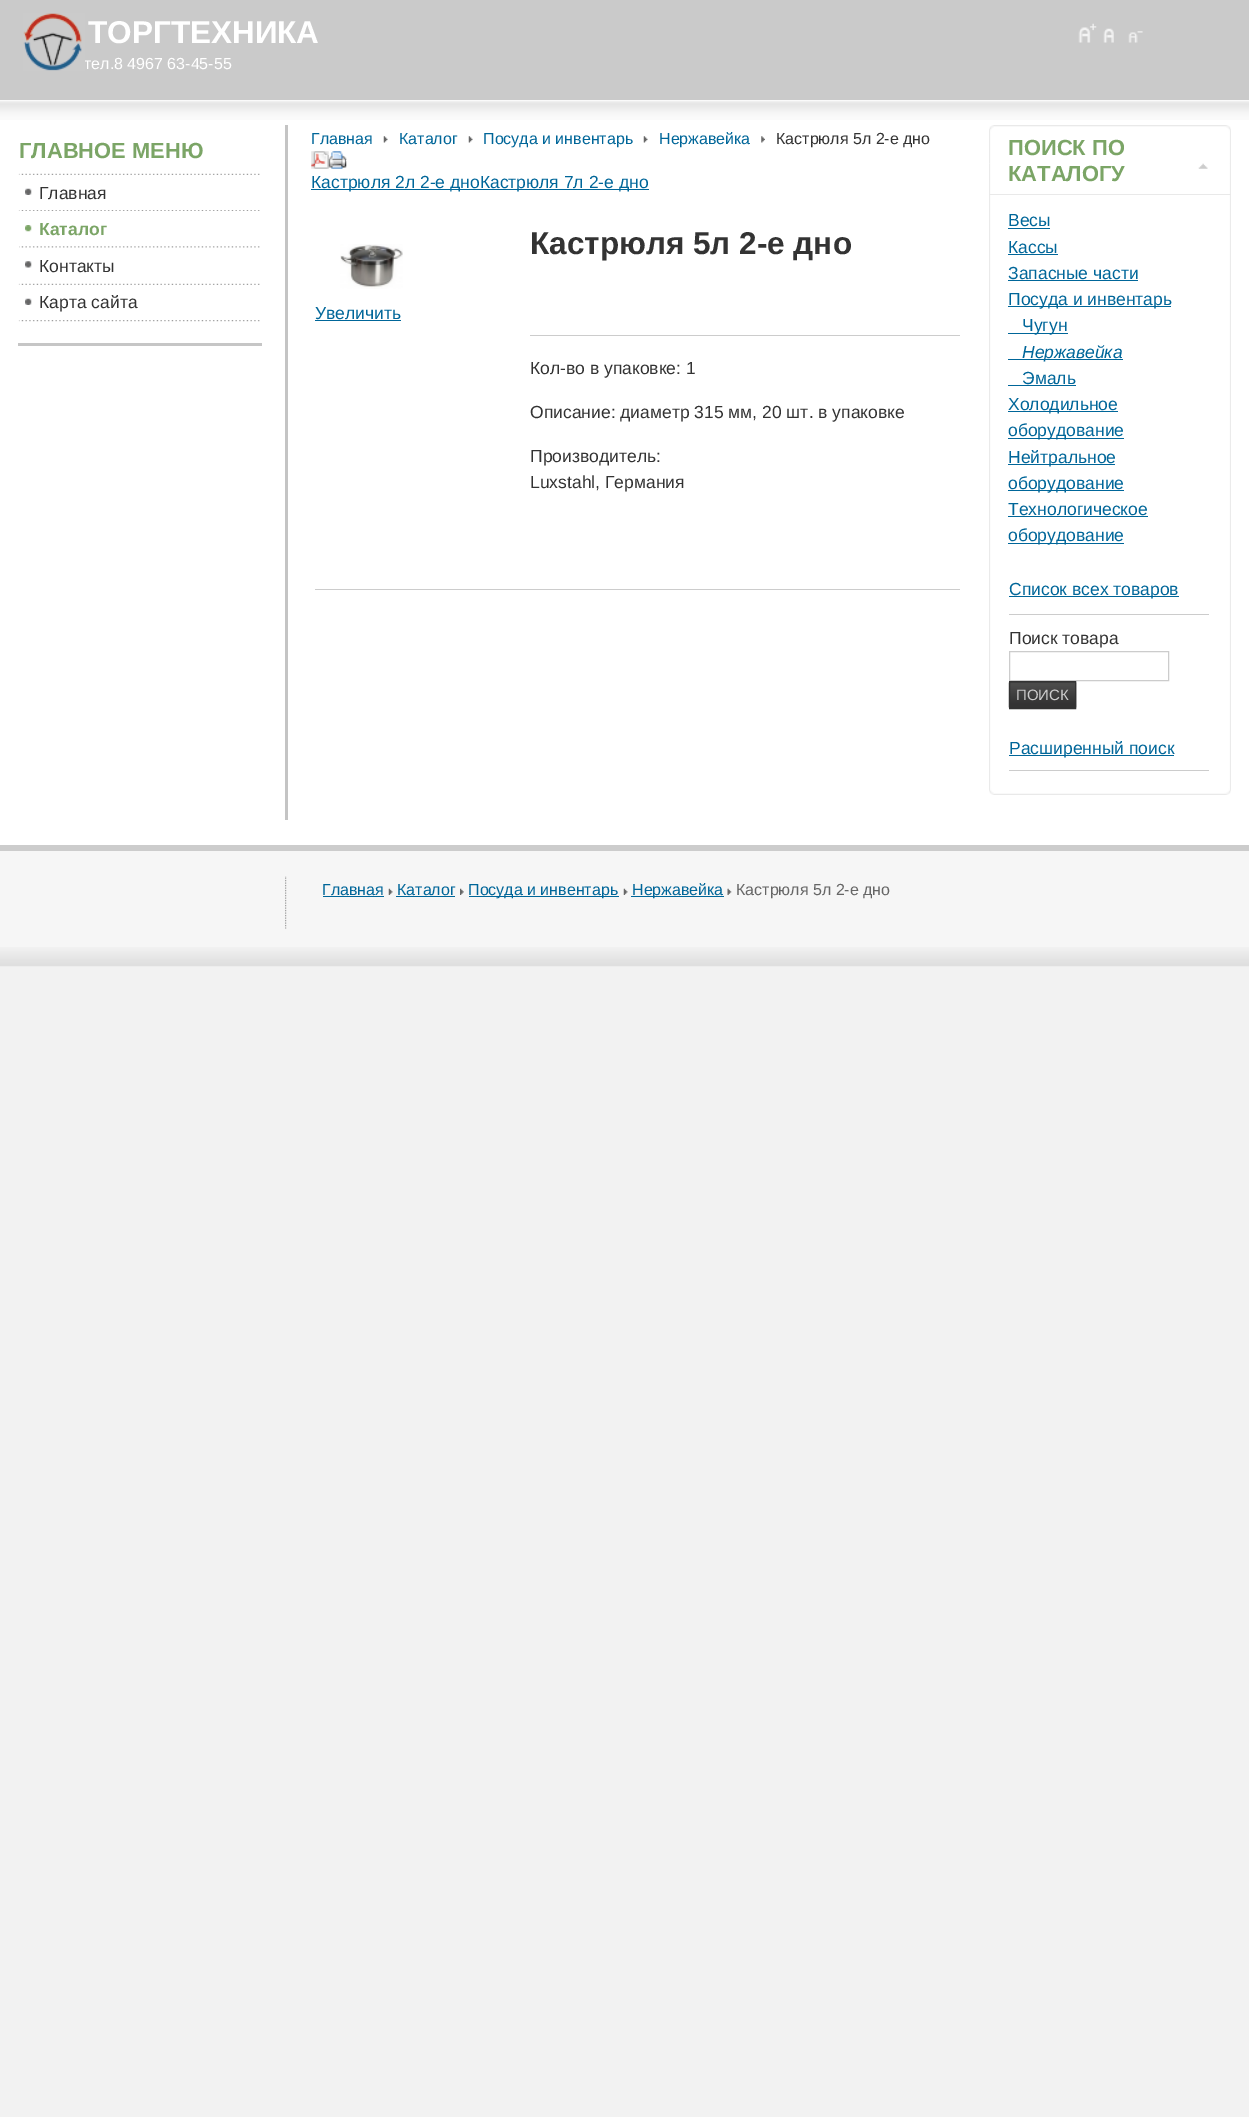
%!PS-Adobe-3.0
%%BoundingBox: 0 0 1249 2117
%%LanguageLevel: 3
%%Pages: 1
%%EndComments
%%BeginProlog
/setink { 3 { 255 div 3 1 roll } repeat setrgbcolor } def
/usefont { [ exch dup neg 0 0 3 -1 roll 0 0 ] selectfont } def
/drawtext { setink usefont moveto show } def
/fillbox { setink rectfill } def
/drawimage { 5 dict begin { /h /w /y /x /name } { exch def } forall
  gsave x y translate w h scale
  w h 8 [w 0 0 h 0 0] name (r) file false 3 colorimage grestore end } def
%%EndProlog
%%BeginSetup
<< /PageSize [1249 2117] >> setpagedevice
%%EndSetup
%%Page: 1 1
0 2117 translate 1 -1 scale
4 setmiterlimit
0 0 1249 2117 242 242 242 fillbox
0 120 1249 725 255 255 255 fillbox
0 0 1249 100 202 202 202 fillbox
(тел.8 4967 63-45-55) 84 69 /LiberationSans-Regular 16 255 255 255 drawtext
(assets/img1.rgb) 23 13 62 58 drawimage
(ТОРГТЕХНИКА) 88 43 /LiberationSans-Bold 31.5 255 255 255 drawtext
(assets/img2.rgb) 1078 23 19 20 drawimage
(assets/img3.rgb) 1103 28 11 15 drawimage
(assets/img4.rgb) 1128 31 15 12 drawimage
(assets/img5.rgb) 0 100 1249 20 drawimage
285 125 3 695 196 196 196 fillbox
18 343 244 3 198 198 198 fillbox
(ГЛАВНОЕ МЕНЮ) 19 158 /LiberationSans-Bold 21.9 123 165 102 drawtext
(assets/img6.rgb) 18 173 242 2 drawimage
(assets/img7.rgb) 18 210 242 1 drawimage
(assets/img8.rgb) 25 188 7 7 drawimage
(Главная) 39 199 /LiberationSans-Regular 17.5 51 51 51 drawtext
(assets/img9.rgb) 19 246 241 2 drawimage
(assets/img10.rgb) 25 225 7 7 drawimage
(Каталог) 39 235 /LiberationSans-Bold 17.5 123 165 102 drawtext
(assets/img6.rgb) 18 283 242 2 drawimage
(assets/img11.rgb) 25 261 7 7 drawimage
(Контакты) 39 272 /LiberationSans-Regular 17.5 51 51 51 drawtext
(assets/img12.rgb) 18 320 242 2 drawimage
(assets/img8.rgb) 25 298 7 7 drawimage
(Карта сайта) 39 308 /LiberationSans-Regular 17.5 51 51 51 drawtext
(Главная) 311 144 /LiberationSans-Regular 16 0 102 153 drawtext
(assets/img13.rgb) 383 136 5 7 drawimage
(Каталог) 399 144 /LiberationSans-Regular 16 0 102 153 drawtext
(assets/img13.rgb) 468 136 5 7 drawimage
(Посуда и инвентарь) 483 144 /LiberationSans-Regular 16 0 102 153 drawtext
(assets/img13.rgb) 643 136 5 7 drawimage
(Нержавейка) 659 144 /LiberationSans-Regular 16 0 102 153 drawtext
(assets/img14.rgb) 761 136 4 7 drawimage
(Кастрюля 5л 2-е дно) 776 144 /LiberationSans-Regular 16 51 51 51 drawtext
(assets/img15.rgb) 311 151 18 18 drawimage
(assets/img16.rgb) 328 151 19 18 drawimage
(assets/img17.rgb) 346 160 1 2 drawimage
311 189 338 1 0 102 153 fillbox
(Кастрюля 2л 2-е дноКастрюля 7л 2-е дно) 311 188 /LiberationSans-Regular 17.5 0 102 153 drawtext
(Кастрюля 5л 2-е дно) 530 254 /LiberationSans-Bold 31.5 51 51 51 drawtext
(assets/img18.rgb) 340 244 63 45 drawimage
(Увеличить) 315 319 /LiberationSans-Regular 17.5 0 102 153 drawtext
315 320 86 1 0 102 153 fillbox
530 335 430 1 204 204 204 fillbox
(Кол-во в упаковке: 1) 530 374 /LiberationSans-Regular 17.5 51 51 51 drawtext
(Описание: диаметр 315 мм, 20 шт. в упаковке) 530 418 /LiberationSans-Regular 17.5 51 51 51 drawtext
(Производитель:) 530 462 /LiberationSans-Regular 17.5 51 51 51 drawtext
(Luxstahl, Германия) 530 488 /LiberationSans-Regular 17.5 51 51 51 drawtext
315 589 645 1 204 204 204 fillbox
(assets/img19.rgb) 994 163 237 632 drawimage
(assets/img20.rgb) 989 163 5 632 drawimage
(assets/img21.rgb) 989 125 242 39 drawimage
(assets/img22.rgb) 989 125 5 39 drawimage
(assets/img23.rgb) 1198 163 10 6 drawimage
989 194 242 1 233 233 233 fillbox
(ПОИСК ПО) 1008 155 /LiberationSans-Bold 21.9 123 165 102 drawtext
(КАТАЛОГУ) 1008 181 /LiberationSans-Bold 21.9 123 165 102 drawtext
(Весы) 1008 226 /LiberationSans-Regular 17.5 0 102 153 drawtext
1008 228 42 1 0 102 153 fillbox
(Кассы) 1008 253 /LiberationSans-Regular 17.5 0 102 153 drawtext
1008 254 50 1 0 102 153 fillbox
(Запасные части) 1008 279 /LiberationSans-Regular 17.5 0 102 153 drawtext
1008 280 130 1 0 102 153 fillbox
1008 306 163 1 0 102 153 fillbox
(Посуда и инвентарь) 1008 305 /LiberationSans-Regular 17.5 0 102 153 drawtext
1008 333 60 1 0 102 153 fillbox
(Чугун) 1022 331 /LiberationSans-Regular 17.5 0 102 153 drawtext
1008 359 115 1 0 102 153 fillbox
(Нержавейка) 1022 358 /LiberationSans-Italic 17.5 0 102 153 drawtext
(Эмаль) 1022 384 /LiberationSans-Regular 17.5 0 102 153 drawtext
1008 385 68 1 0 102 153 fillbox
1008 411 110 1 0 102 153 fillbox
(Холодильное) 1008 410 /LiberationSans-Regular 17.5 0 102 153 drawtext
1008 438 116 1 0 102 153 fillbox
(оборудование) 1008 436 /LiberationSans-Regular 17.5 0 102 153 drawtext
1008 464 107 1 0 102 153 fillbox
(Нейтральное) 1008 463 /LiberationSans-Regular 17.5 0 102 153 drawtext
1008 490 116 1 0 102 153 fillbox
(оборудование) 1008 489 /LiberationSans-Regular 17.5 0 102 153 drawtext
(Технологическое) 1008 515 /LiberationSans-Regular 17.5 0 102 153 drawtext
1008 516 140 1 0 102 153 fillbox
1008 543 116 1 0 102 153 fillbox
(оборудование) 1008 541 /LiberationSans-Regular 17.5 0 102 153 drawtext
1009 596 170 1 0 102 153 fillbox
(Список всех товаров) 1009 595 /LiberationSans-Regular 17.5 0 102 153 drawtext
1009 614 200 1 204 204 204 fillbox
(Поиск товара) 1009 644 /LiberationSans-Regular 17.5 51 51 51 drawtext
204 204 204 setink
1009.5 651.5 159 29 rectstroke
1010 682 65 26 51 51 51 fillbox
(assets/img24.rgb) 1008 682 69 26 drawimage
1009.5 681.5 66 27 rectstroke
(ПОИСК) 1016 700 /LiberationSans-Regular 15 204 204 204 drawtext
1009 755 165 1 0 102 153 fillbox
(Расширенный поиск) 1009 754 /LiberationSans-Regular 17.5 0 102 153 drawtext
1009 770 200 1 204 204 204 fillbox
0 851 1249 96 246 246 246 fillbox
(assets/img25.rgb) 0 947 1249 20 drawimage
0 845 1249 6 204 204 204 fillbox
(assets/img26.rgb) 285 876 2 53 drawimage
(Главная) 322 895 /LiberationSans-Regular 16 0 102 153 drawtext
323 896 61 1 0 102 153 fillbox
(assets/img27.rgb) 388 888 5 7 drawimage
(Каталог) 397 895 /LiberationSans-Regular 16 0 102 153 drawtext
396 896 59 1 0 102 153 fillbox
(assets/img28.rgb) 460 888 4 7 drawimage
469 896 150 1 0 102 153 fillbox
(Посуда и инвентарь) 468 895 /LiberationSans-Regular 16 0 102 153 drawtext
(assets/img27.rgb) 623 888 5 7 drawimage
631 896 93 1 0 102 153 fillbox
(Нержавейка) 632 895 /LiberationSans-Regular 16 0 102 153 drawtext
(assets/img29.rgb) 727 888 5 7 drawimage
(Кастрюля 5л 2-е дно) 736 895 /LiberationSans-Regular 16 102 102 102 drawtext
showpage
%%EOF
